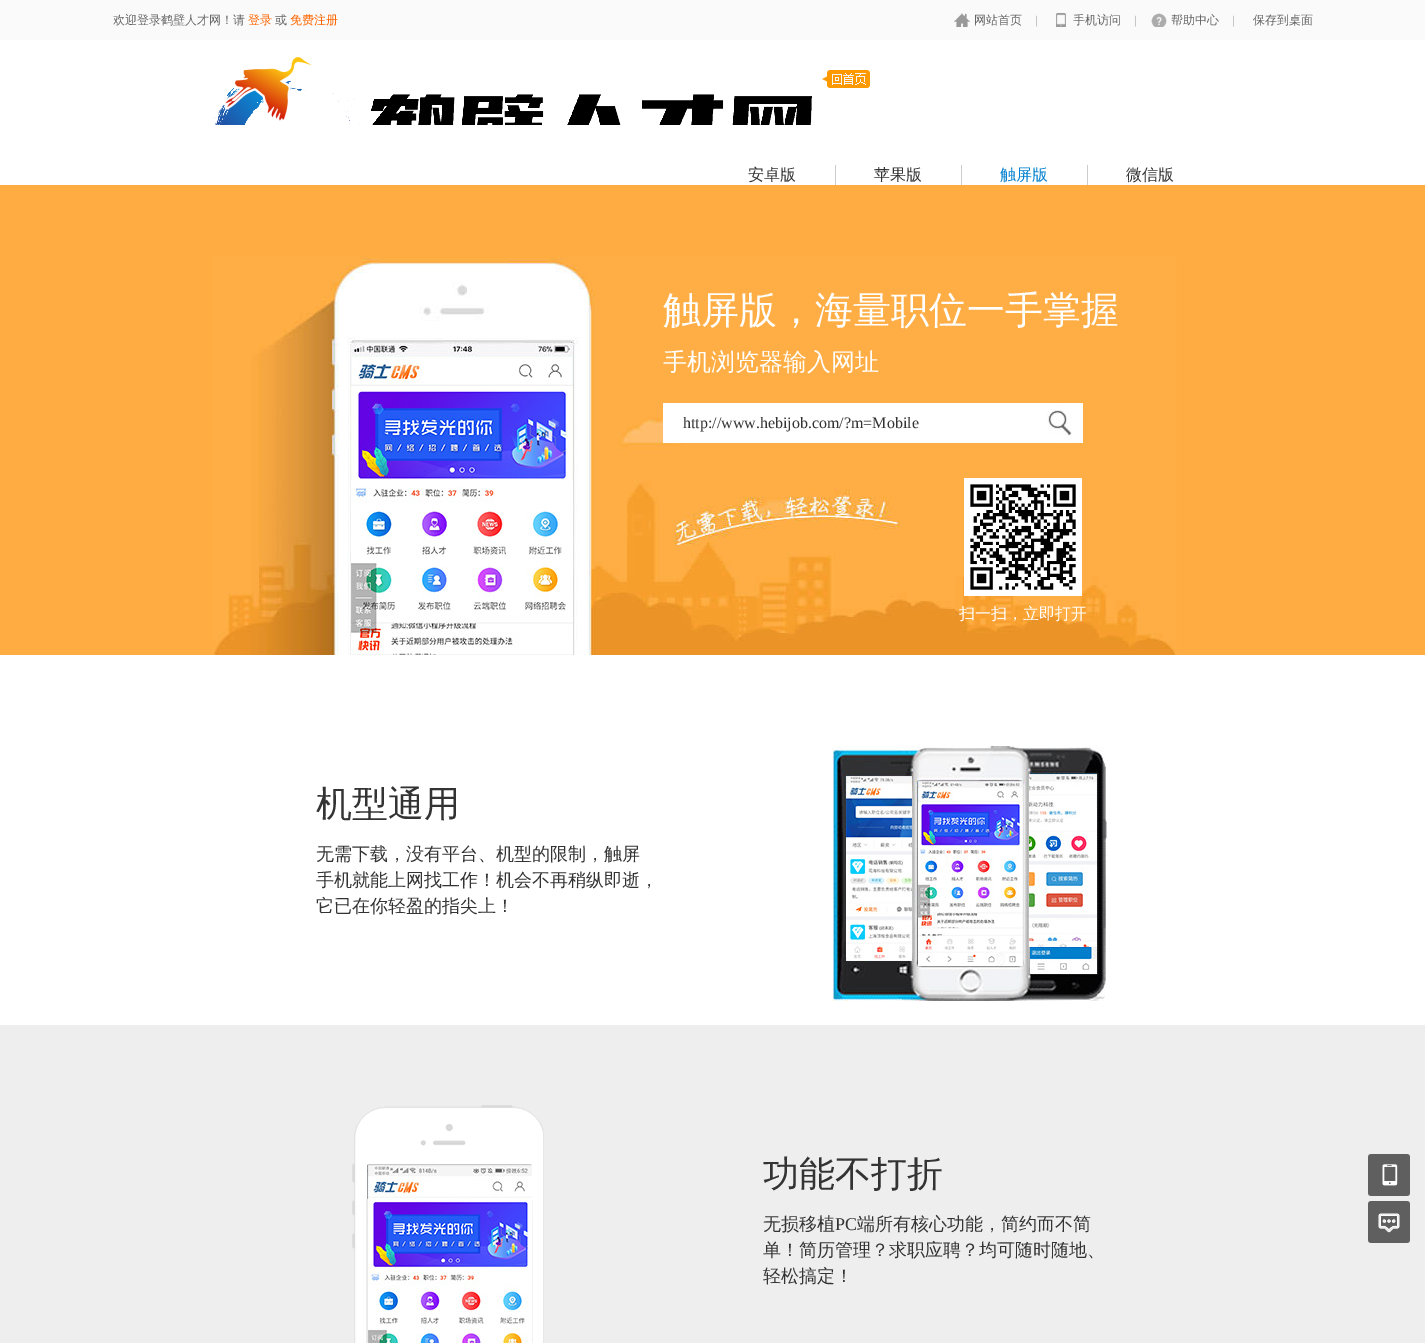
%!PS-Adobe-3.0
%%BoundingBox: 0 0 1425 1343
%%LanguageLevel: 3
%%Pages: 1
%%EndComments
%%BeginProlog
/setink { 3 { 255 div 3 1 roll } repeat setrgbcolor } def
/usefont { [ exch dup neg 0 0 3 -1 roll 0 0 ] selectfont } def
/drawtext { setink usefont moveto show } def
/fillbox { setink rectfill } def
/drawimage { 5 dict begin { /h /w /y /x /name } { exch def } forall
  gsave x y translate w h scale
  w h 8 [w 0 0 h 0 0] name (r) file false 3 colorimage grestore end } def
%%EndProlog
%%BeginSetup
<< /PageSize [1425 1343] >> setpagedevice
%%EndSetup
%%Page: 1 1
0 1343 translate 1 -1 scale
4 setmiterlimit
0 0 1425 1343 255 255 255 fillbox
0 0 1425 40 250 250 250 fillbox
(欢迎登录鹤壁人才网！请) 113 24 /WenQuanYiZenHei-Medium 12 102 102 102 drawtext
(登录) 248 24 /WenQuanYiZenHei-Medium 12 255 102 0 drawtext
(或) 275 24 /WenQuanYiZenHei-Medium 12 102 102 102 drawtext
(免费注册) 290 24 /WenQuanYiZenHei-Medium 12 255 102 0 drawtext
(assets/img1.rgb) 954 13 16 14 drawimage
(网站首页) 974 24 /WenQuanYiZenHei-Medium 12 102 102 102 drawtext
(|) 1035 24 /LiberationSerif-Regular 12 153 153 153 drawtext
(assets/img2.rgb) 1056 13 10 14 drawimage
(手机访问) 1073 24 /WenQuanYiZenHei-Medium 12 102 102 102 drawtext
(|) 1134 24 /LiberationSerif-Regular 12 153 153 153 drawtext
(assets/img3.rgb) 1151 13 16 14 drawimage
(帮助中心) 1171 24 /WenQuanYiZenHei-Medium 12 102 102 102 drawtext
(|) 1232 24 /LiberationSerif-Regular 12 153 153 153 drawtext
(保存到桌面) 1253 24 /WenQuanYiZenHei-Medium 12 102 102 102 drawtext
(assets/img4.rgb) 214 57 598 68 drawimage
(assets/img5.rgb) 822 70 48 18 drawimage
835 165 1 20 204 204 204 fillbox
(安卓版) 748 180 /WenQuanYiZenHei-Medium 16 51 51 51 drawtext
961 165 1 20 204 204 204 fillbox
(苹果版) 874 180 /WenQuanYiZenHei-Medium 16 51 51 51 drawtext
1087 165 1 20 204 204 204 fillbox
(触屏版) 1000 180 /WenQuanYiZenHei-Medium 16 1 128 207 drawtext
(微信版) 1126 180 /WenQuanYiZenHei-Medium 16 51 51 51 drawtext
0 185 1425 470 255 173 67 fillbox
(assets/img6.rgb) 213 257 964 398 drawimage
(assets/img7.rgb) 351 343 222 312 drawimage
(触屏版，海量职位一手掌握) 663 323 /WenQuanYiZenHei-Medium 38 255 255 255 drawtext
(手机浏览器输入网址) 663 370 /WenQuanYiZenHei-Medium 24 255 255 255 drawtext
(assets/img8.rgb) 663 403 420 40 drawimage
(http://www.hebijob.com/?m=Mobile) 683 428 /LiberationSerif-Regular 16 51 51 51 drawtext
(assets/img9.rgb) 964 478 118 118 drawimage
(扫一扫，立即打开) 959 619 /WenQuanYiZenHei-Medium 16 255 255 255 drawtext
(机型通用) 316 816 /WenQuanYiZenHei-Medium 36 51 51 51 drawtext
(无需下载，没有平台、机型的限制，触屏) 316 860 /WenQuanYiZenHei-Medium 18 51 51 51 drawtext
(手机就能上网找工作！机会不再稍纵即逝，) 316 886 /WenQuanYiZenHei-Medium 18 51 51 51 drawtext
(它已在你轻盈的指尖上！) 316 912 /WenQuanYiZenHei-Medium 18 51 51 51 drawtext
(assets/img10.rgb) 833 746 275 255 drawimage
0 1025 1425 318 238 238 238 fillbox
(assets/img11.rgb) 352 1105 192 238 drawimage
(assets/img12.rgb) 368 1165 164 178 drawimage
(功能不打折) 763 1186 /WenQuanYiZenHei-Medium 36 51 51 51 drawtext
(无损移植) 763 1230 /WenQuanYiZenHei-Medium 18 51 51 51 drawtext
(PC) 835 1230 /LiberationSerif-Regular 18 51 51 51 drawtext
(端所有核心功能，简约而不简) 857 1230 /WenQuanYiZenHei-Medium 18 51 51 51 drawtext
(单！简历管理？求职应聘？均可随时随地、) 763 1256 /WenQuanYiZenHei-Medium 18 51 51 51 drawtext
(轻松搞定！) 763 1282 /WenQuanYiZenHei-Medium 18 51 51 51 drawtext
(assets/img13.rgb) 1368 1154 42 42 drawimage
(assets/img14.rgb) 1368 1201 42 42 drawimage
showpage
%%EOF
